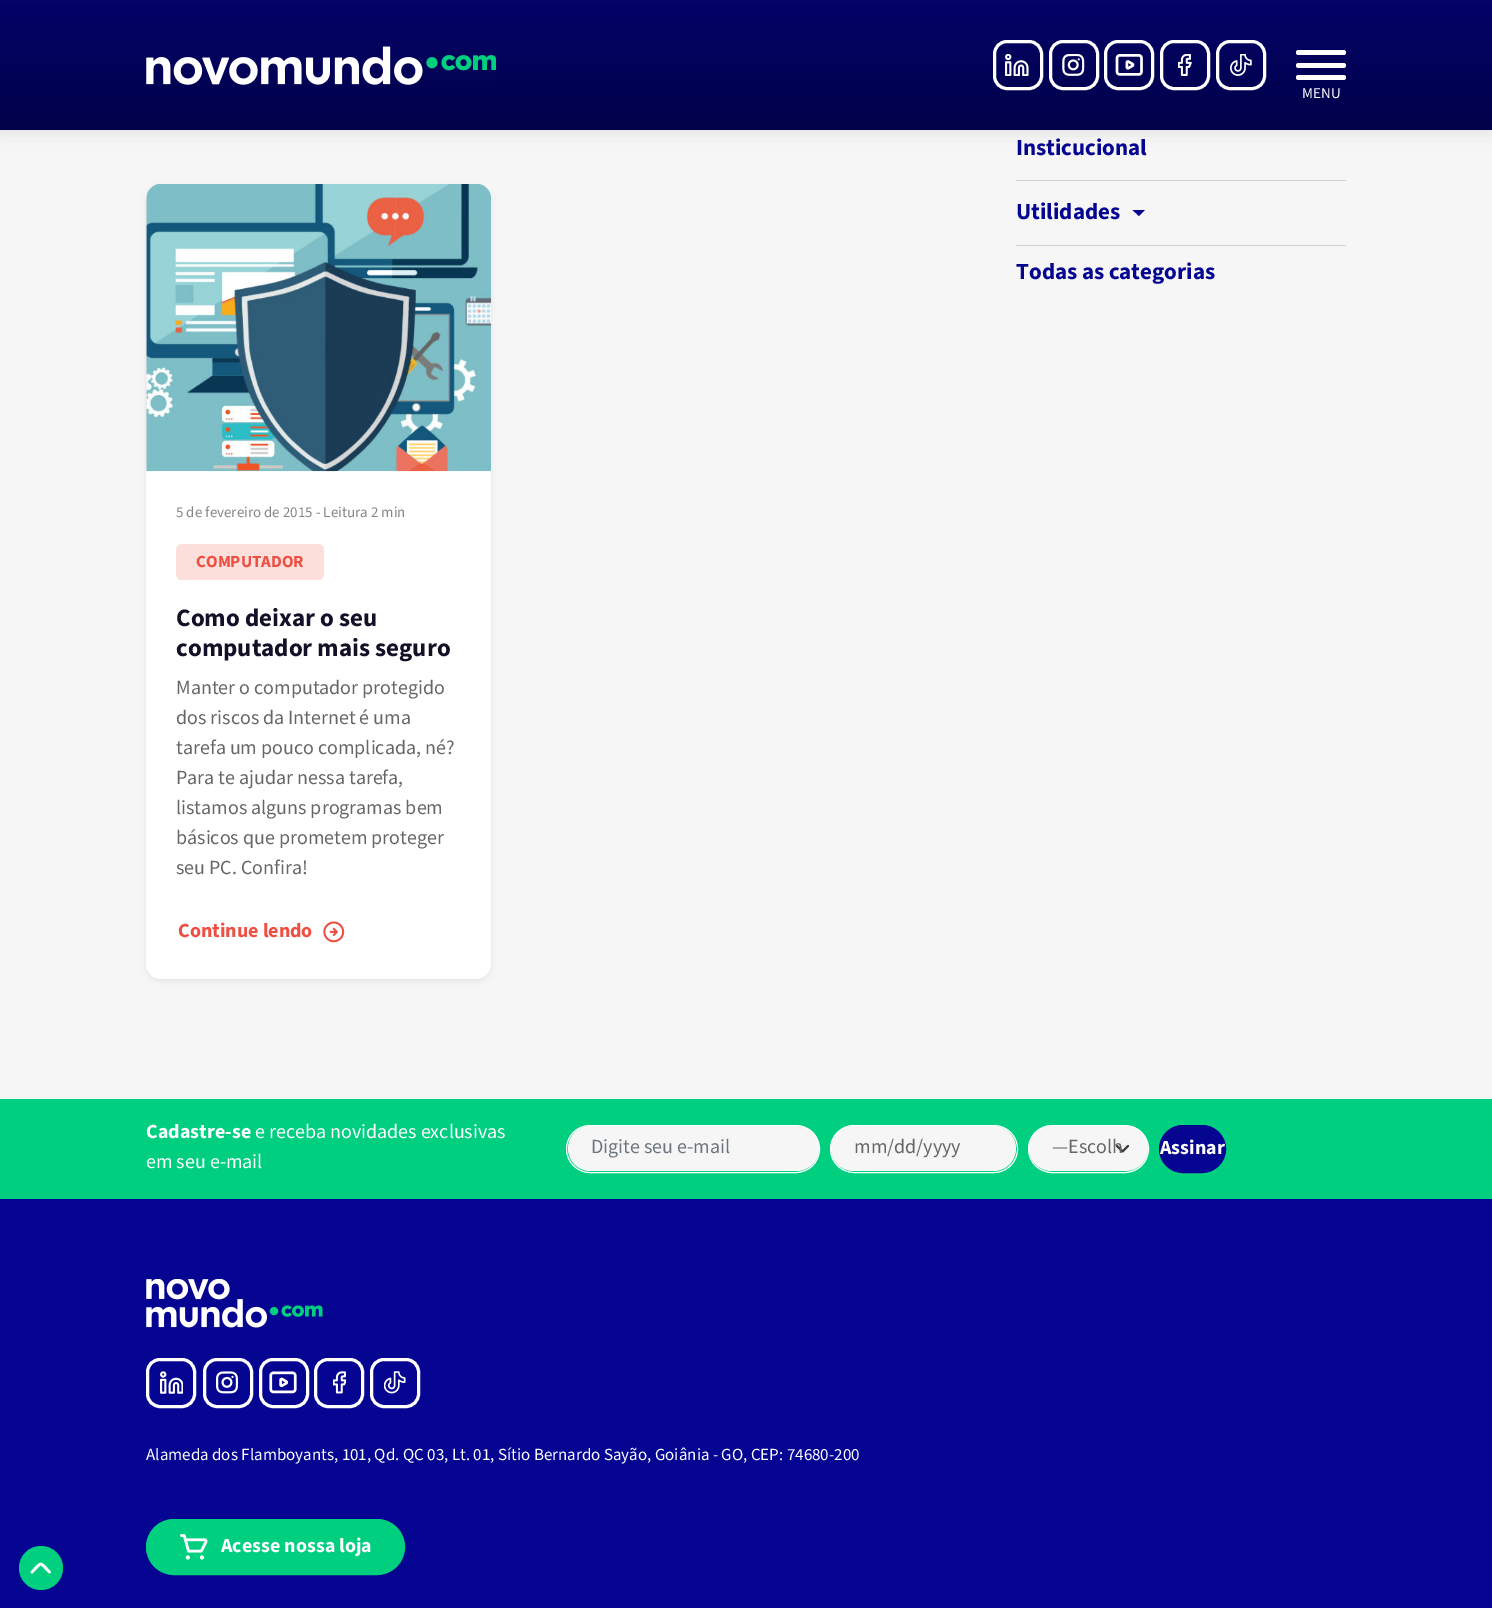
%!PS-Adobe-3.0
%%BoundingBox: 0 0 1492 1608
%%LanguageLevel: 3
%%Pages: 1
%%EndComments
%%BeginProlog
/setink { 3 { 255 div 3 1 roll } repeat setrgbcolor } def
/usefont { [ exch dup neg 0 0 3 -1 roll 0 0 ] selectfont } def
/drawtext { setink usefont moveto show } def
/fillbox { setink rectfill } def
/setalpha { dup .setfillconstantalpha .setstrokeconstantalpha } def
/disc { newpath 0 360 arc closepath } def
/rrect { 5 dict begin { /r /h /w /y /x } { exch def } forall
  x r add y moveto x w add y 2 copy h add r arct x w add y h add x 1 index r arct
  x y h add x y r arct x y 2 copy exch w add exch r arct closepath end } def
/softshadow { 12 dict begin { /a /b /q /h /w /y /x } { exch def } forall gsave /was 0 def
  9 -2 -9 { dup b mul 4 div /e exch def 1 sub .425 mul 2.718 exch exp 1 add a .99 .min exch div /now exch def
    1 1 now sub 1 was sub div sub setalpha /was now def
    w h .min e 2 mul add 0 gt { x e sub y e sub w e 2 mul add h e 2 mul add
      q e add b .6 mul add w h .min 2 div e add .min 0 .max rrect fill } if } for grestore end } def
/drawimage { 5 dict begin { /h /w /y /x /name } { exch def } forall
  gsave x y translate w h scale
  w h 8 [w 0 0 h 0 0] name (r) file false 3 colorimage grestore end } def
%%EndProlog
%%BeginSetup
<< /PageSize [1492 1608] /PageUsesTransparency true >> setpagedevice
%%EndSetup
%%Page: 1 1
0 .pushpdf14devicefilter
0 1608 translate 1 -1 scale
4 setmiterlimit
0 0 1492 1608 246 246 246 fillbox
0 0 0 setink
0 0 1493 130 0 9.5 0.1 softshadow
gsave 0 0 moveto 1492 0 lineto 1492 130 lineto 0 130 lineto closepath clip newpath
<< /ShadingType 2 /ColorSpace /DeviceRGB /Coords [746 130 746 -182] /Extend [true true] /Function << /FunctionType 2 /Domain [0 1] /C0 [0.004 0.004 0.29] /C1 [0.02 0.02 0.569] /N 1 >> >> shfill grestore
(assets/img1.rgb) 146 46 350 39 drawimage
(assets/img2.rgb) 1005 54 24 22 drawimage
255 255 255 setink
3 setlinewidth
994.5 41.5 47 47 12.5 rrect stroke
(assets/img3.rgb) 1062 54 23 22 drawimage
1050.5 41.5 47 47 12.5 rrect stroke
(assets/img4.rgb) 1115 54 28 22 drawimage
1105.5 41.5 47 47 12.5 rrect stroke
(assets/img5.rgb) 1178 54 14 22 drawimage
1161.5 41.5 47 47 12.5 rrect stroke
(assets/img6.rgb) 1230 54 22 22 drawimage
1217.5 41.5 47 47 12.5 rrect stroke
1296 63 50 5 2.5 rrect fill
1296 50 50 5 2.5 rrect fill
1296 75 50 5 2.5 rrect fill
(MENU) 1302 98 /Mada-Regular 15 255 255 255 drawtext
(Insticucional) 1016 155 /Mada-Bold 23 5 5 145 drawtext
1016 180 330 1 210 210 210 fillbox
(Utilidades) 1016 219 /Mada-Bold 23 5 5 145 drawtext
1132.5 210 moveto 1145 210 lineto 1139 216 lineto closepath fill
1016 245 330 1 210 210 210 fillbox
(Todas as categorias) 1016 279 /Mada-Bold 23 5 5 145 drawtext
0 0 0 setink
146 186 345 795 15 2.5 0.07 softshadow
255 255 255 setink
146 184 345 795 15 rrect fill
229 229 229 setink
161 184 moveto 476 184 lineto 484.5 184 491 190.5 491 199 curveto 491 471 lineto 146 471 lineto 146 199 lineto 146 190.5 152.5 184 161 184 curveto closepath fill
(assets/img7.rgb) 146 184 345 288 drawimage
(5 de fevereiro de 2015 - Leitura 2 min) 176 517 /Mada-Regular 15 133 133 133 drawtext
252 222 219 setink
176 544 148 36 6 rrect fill
(COMPUTADOR) 196 567 /Mada-Bold 17 237 79 66 drawtext
(Como deixar o seu) 176 626 /Mada-Bold 25 18 17 39 drawtext
(computador mais seguro) 176 656 /Mada-Bold 25 18 17 39 drawtext
(Manter o computador protegido) 176 694 /Mada-Regular 20 102 102 102 drawtext
(dos riscos da Internet é uma) 176 724 /Mada-Regular 20 102 102 102 drawtext
(tarefa um pouco complicada, né?) 176 754 /Mada-Regular 20 102 102 102 drawtext
(Para te ajudar nessa tarefa,) 176 784 /Mada-Regular 20 102 102 102 drawtext
(listamos alguns programas bem) 176 814 /Mada-Regular 20 102 102 102 drawtext
(básicos que prometem proteger) 176 844 /Mada-Regular 20 102 102 102 drawtext
(seu PC. Confira!) 176 874 /Mada-Regular 20 102 102 102 drawtext
(Continue lendo) 178 937 /Mada-Bold 20 237 79 66 drawtext
(assets/img8.rgb) 323 921 22 22 drawimage
0 1199 1492 409 5 5 145 fillbox
0 1099 1492 100 0 207 128 fillbox
(Cadastre-se) 146 1138 /Mada-Bold 20 255 255 255 drawtext
(e receba novidades exclusivas) 255 1138 /Mada-Regular 20 255 255 255 drawtext
(em seu e-mail) 146 1168 /Mada-Regular 20 255 255 255 drawtext
246 246 246 setink
568 1126 251 45 22.5 rrect fill
255 255 255 setink
1 setlinewidth
566.5 1125.5 253 47 23.5 rrect stroke
(Digite seu e-mail) 591 1153 /Mada-Regular 20 108 117 125 drawtext
246 246 246 setink
831 1126 185 45 22.5 rrect fill
255 255 255 setink
830.5 1125.5 187 47 23.5 rrect stroke
(mm/dd/yyyy) 854 1153 /Mada-Regular 20 102 102 102 drawtext
246 246 246 setink
1029 1126 119 45 22.5 rrect fill
52 58 64 setink
1.9 setlinewidth
1 setlinecap
1 setlinejoin
1117 1146 moveto 1122.5 1151.5 lineto 1128 1146 lineto stroke
255 255 255 setink
1 setlinewidth
0 setlinecap
0 setlinejoin
1028.5 1125.5 120 47 23.5 rrect stroke
(—Escolh) 1052 1153 /Mada-Regular 20 102 102 102 drawtext
5 5 145 setink
1159.5 1125.5 66 47 23.5 rrect gsave fill grestore
stroke
gsave
1160 1126 65 45 22.5 rrect clip newpath
(Assinar) 1160 1154 /Mada-Bold 20 255 255 255 drawtext
grestore
(assets/img9.rgb) 146 1279 177 49 drawimage
(assets/img10.rgb) 160 1371 23 23 drawimage
255 255 255 setink
3 setlinewidth
147.5 1359.5 47 47 12.5 rrect stroke
(assets/img11.rgb) 215 1371 23 23 drawimage
204.5 1359.5 47 47 12.5 rrect stroke
(assets/img12.rgb) 269 1371 28 23 drawimage
260.5 1359.5 47 47 12.5 rrect stroke
(assets/img13.rgb) 333 1371 13 23 drawimage
315.5 1359.5 47 47 12.5 rrect stroke
(assets/img14.rgb) 384 1371 22 23 drawimage
371.5 1359.5 47 47 12.5 rrect stroke
(Alameda dos Flamboyants, 101, Qd. QC 03, Lt. 01, Sítio Bernardo Sayão, Goiânia - GO, CEP: 74680-200) 146 1460 /Mada-Regular 17 255 255 255 drawtext
0 207 128 setink
146.5 1519.5 258 55 27.5 rrect gsave fill grestore
1 setlinewidth
stroke
(assets/img15.rgb) 180 1534 28 26 drawimage
(Acesse nossa loja) 221 1552 /Mada-Bold 20 255 255 255 drawtext
0 207 128 setink
41 1568 22 disc fill
255 255 255 setink
2.7 setlinewidth
1 setlinecap
2 setlinejoin
49.5 1572 moveto 39 1561.5 42.5 1561.5 32 1572 curveto stroke
.poppdf14devicefilter showpage
%%EOF
